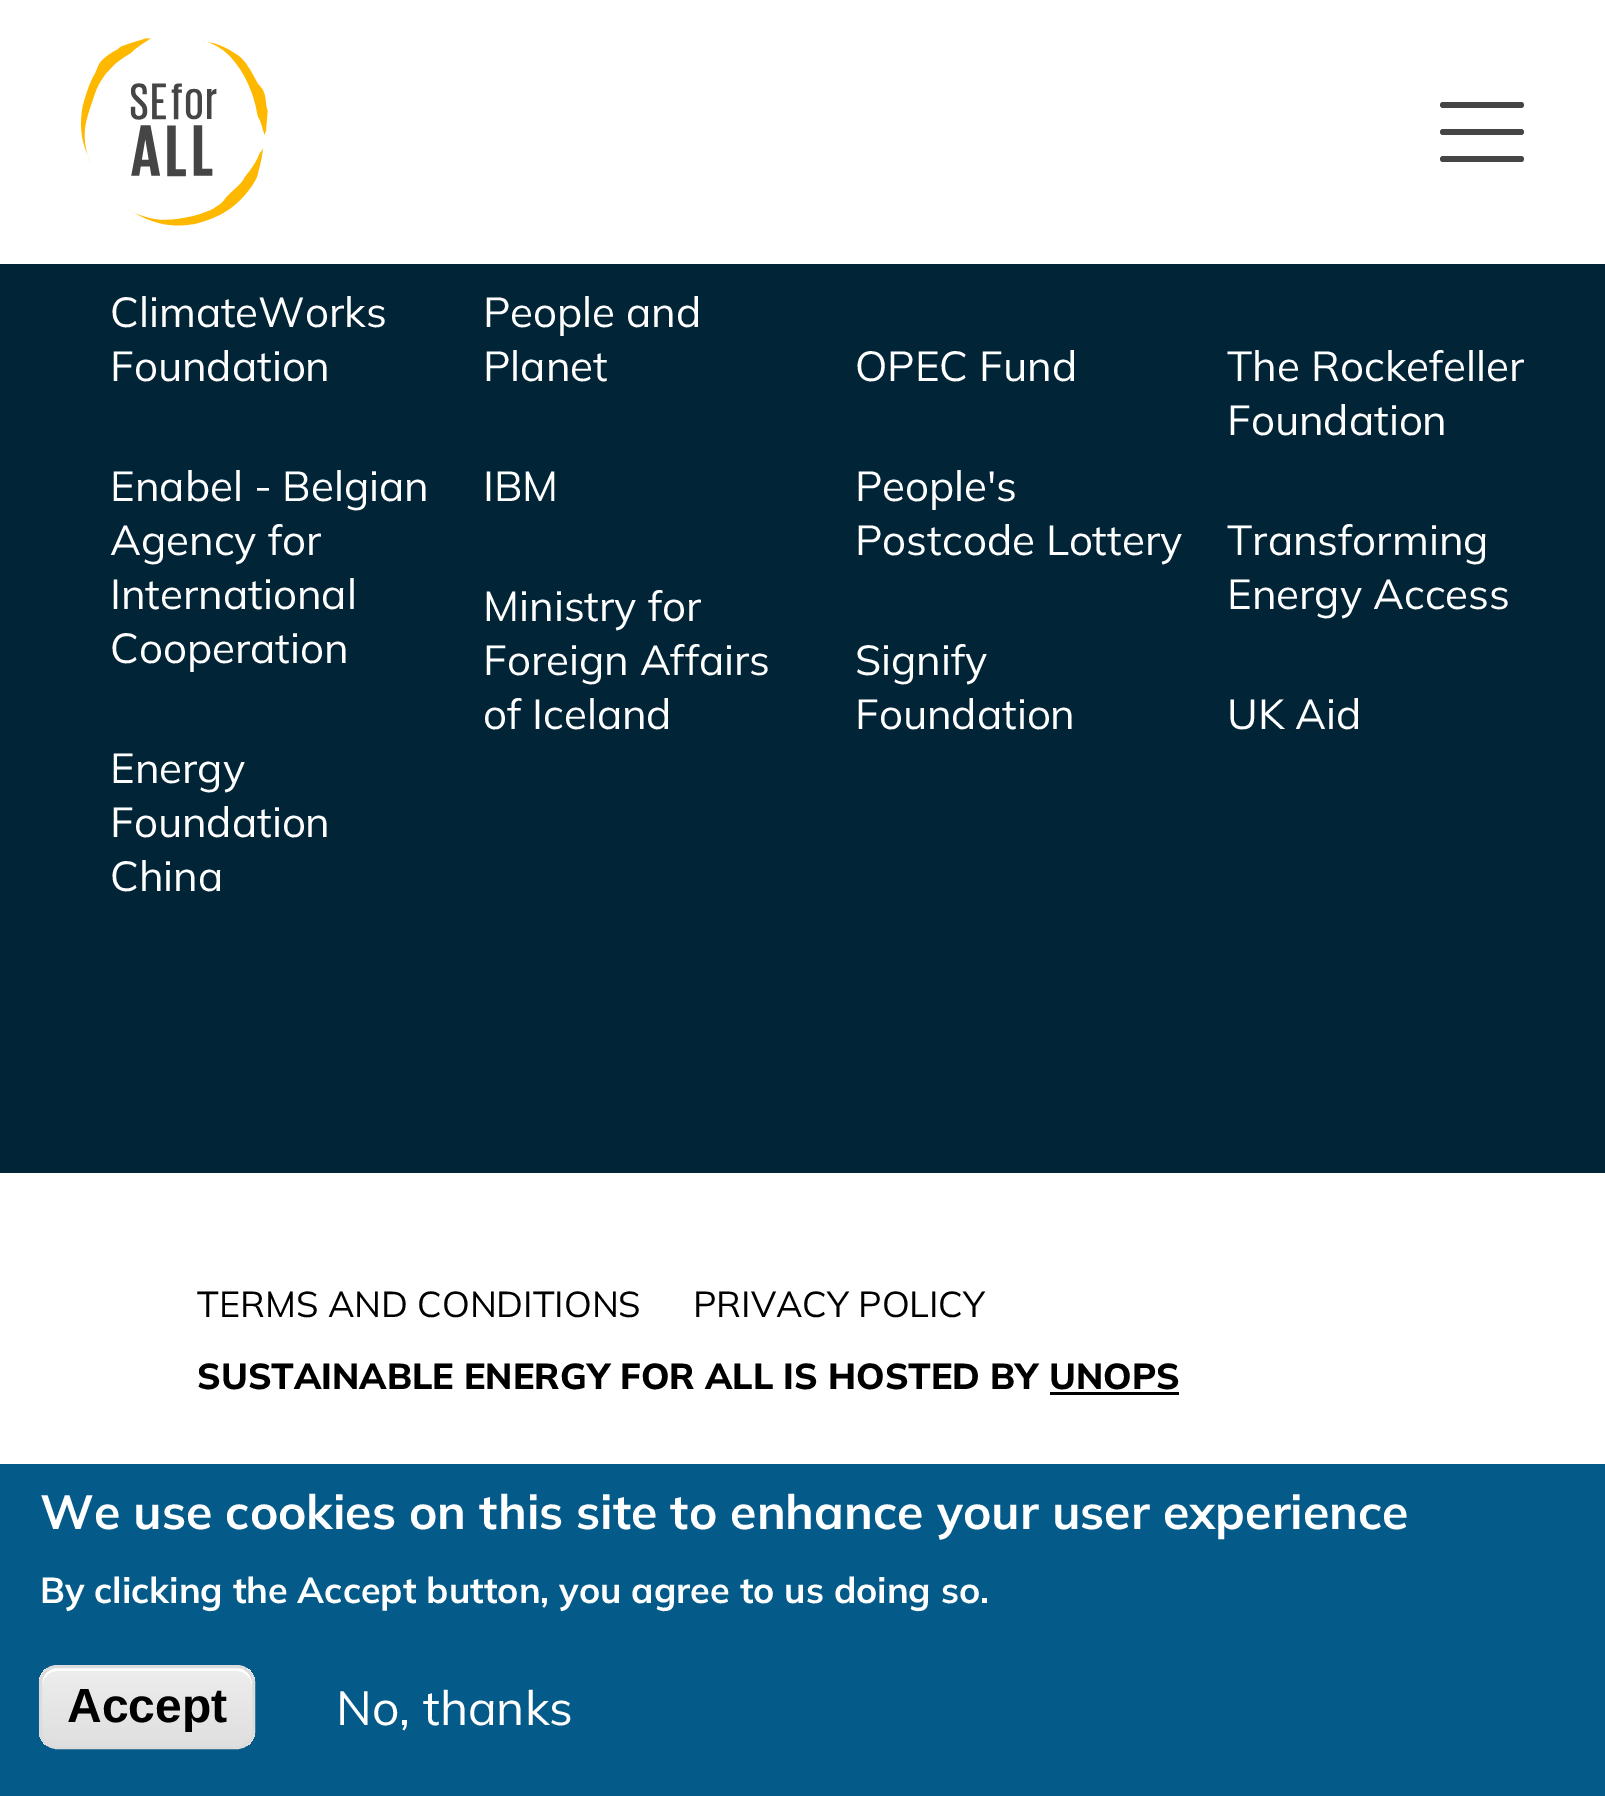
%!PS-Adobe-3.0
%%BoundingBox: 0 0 1605 1796
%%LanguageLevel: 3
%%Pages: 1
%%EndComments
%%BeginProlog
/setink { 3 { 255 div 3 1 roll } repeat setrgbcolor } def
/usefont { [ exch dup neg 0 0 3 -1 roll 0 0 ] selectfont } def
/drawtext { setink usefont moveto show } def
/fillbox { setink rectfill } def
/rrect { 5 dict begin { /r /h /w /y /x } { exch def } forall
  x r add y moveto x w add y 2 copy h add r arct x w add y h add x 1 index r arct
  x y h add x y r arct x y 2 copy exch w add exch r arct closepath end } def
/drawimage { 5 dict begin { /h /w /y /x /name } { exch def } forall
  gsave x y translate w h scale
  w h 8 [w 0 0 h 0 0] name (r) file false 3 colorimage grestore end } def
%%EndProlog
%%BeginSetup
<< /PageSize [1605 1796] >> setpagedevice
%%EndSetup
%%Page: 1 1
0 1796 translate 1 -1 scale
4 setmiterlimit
0 0 1605 1796 2 36 55 fillbox
0 0 1605 264 255 255 255 fillbox
(assets/img1.rgb) 81 37 187 189 drawimage
69 69 69 setink
1440 102 84 6 3 rrect fill
1440 129 84 6 3 rrect fill
1440 156 84 6 3 rrect fill
(ClimateWorks) 110 327 /Mulish-Regular 42 255 255 255 drawtext
(Foundation) 110 381 /Mulish-Regular 42 255 255 255 drawtext
(People and) 483 327 /Mulish-Regular 42 255 255 255 drawtext
(Planet) 483 381 /Mulish-Regular 42 255 255 255 drawtext
(OPEC Fund) 855 381 /Mulish-Regular 42 255 255 255 drawtext
(The Rockefeller) 1227 381 /Mulish-Regular 42 255 255 255 drawtext
(Foundation) 1227 435 /Mulish-Regular 42 255 255 255 drawtext
(Enabel - Belgian) 110 501 /Mulish-Regular 42 255 255 255 drawtext
(Agency for) 110 555 /Mulish-Regular 42 255 255 255 drawtext
(International) 110 609 /Mulish-Regular 42 255 255 255 drawtext
(Cooperation) 110 663 /Mulish-Regular 42 255 255 255 drawtext
(IBM) 483 501 /Mulish-Regular 42 255 255 255 drawtext
(People's) 855 501 /Mulish-Regular 42 255 255 255 drawtext
(Postcode Lottery) 855 555 /Mulish-Regular 42 255 255 255 drawtext
(Transforming) 1227 555 /Mulish-Regular 42 255 255 255 drawtext
(Energy Access) 1227 609 /Mulish-Regular 42 255 255 255 drawtext
(Ministry for) 483 621 /Mulish-Regular 42 255 255 255 drawtext
(Foreign Affairs) 483 675 /Mulish-Regular 42 255 255 255 drawtext
(of Iceland) 483 729 /Mulish-Regular 42 255 255 255 drawtext
(Signify) 855 675 /Mulish-Regular 42 255 255 255 drawtext
(Foundation) 855 729 /Mulish-Regular 42 255 255 255 drawtext
(UK Aid) 1227 729 /Mulish-Regular 42 255 255 255 drawtext
(Energy) 110 783 /Mulish-Regular 42 255 255 255 drawtext
(Foundation) 110 837 /Mulish-Regular 42 255 255 255 drawtext
(China) 110 891 /Mulish-Regular 42 255 255 255 drawtext
0 1173 1605 291 255 255 255 fillbox
(TERMS AND CONDITIONS) 197 1317 /Mulish-Regular 36 0 0 0 drawtext
(PRIVACY POLICY) 693 1317 /Mulish-Regular 36 0 0 0 drawtext
(SUSTAINABLE ENERGY FOR ALL IS HOSTED BY UNOPS) 197 1389 /Mulish-ExtraBold 36 0 0 0 drawtext
1050 1392 129 3 0 0 0 fillbox
0 1464 1605 332 4 90 137 fillbox
(We use cookies on this site to enhance your user experience) 40 1529 /Mulish-Bold 48 255 255 255 drawtext
(By clicking the Accept button, you agree to us doing so.) 40 1603 /Mulish-Bold 36 255 255 255 drawtext
gsave
39 1665 216 84 18 rrect clip newpath
gsave 39 1668 moveto 255 1668 lineto 255 1746 lineto 39 1746 lineto closepath clip newpath
<< /ShadingType 2 /ColorSpace /DeviceRGB /Coords [147 1668 147 1746] /Extend [true true] /Function << /FunctionType 3 /Domain [0 1] /Functions [<< /FunctionType 2 /Domain [0 1] /C0 [0.929 0.929 0.929] /C1 [0.929 0.929 0.929] /N 1 >> << /FunctionType 2 /Domain [0 1] /C0 [0.929 0.929 0.929] /C1 [0.875 0.875 0.875] /N 1 >>] /Bounds [0.05] /Encode [0 1 0 1] >> >> shfill grestore
grestore
57 1671 moveto 237 1671 lineto 245 1671 252 1678 252 1686 curveto 252 1683 lineto 252 1675 245 1668 237 1668 curveto 57 1668 lineto 49 1668 42 1675 42 1683 curveto 42 1686 lineto 42 1678 49 1671 57 1671 curveto closepath fill
220 220 220 setink
3 setlinewidth
40.5 1666.5 213 81 16.5 rrect stroke
(Accept) 67 1722 /LiberationSans-Bold 48 0 0 0 drawtext
(No, thanks) 336 1725 /Mulish-Regular 48 255 255 255 drawtext
showpage
%%EOF
